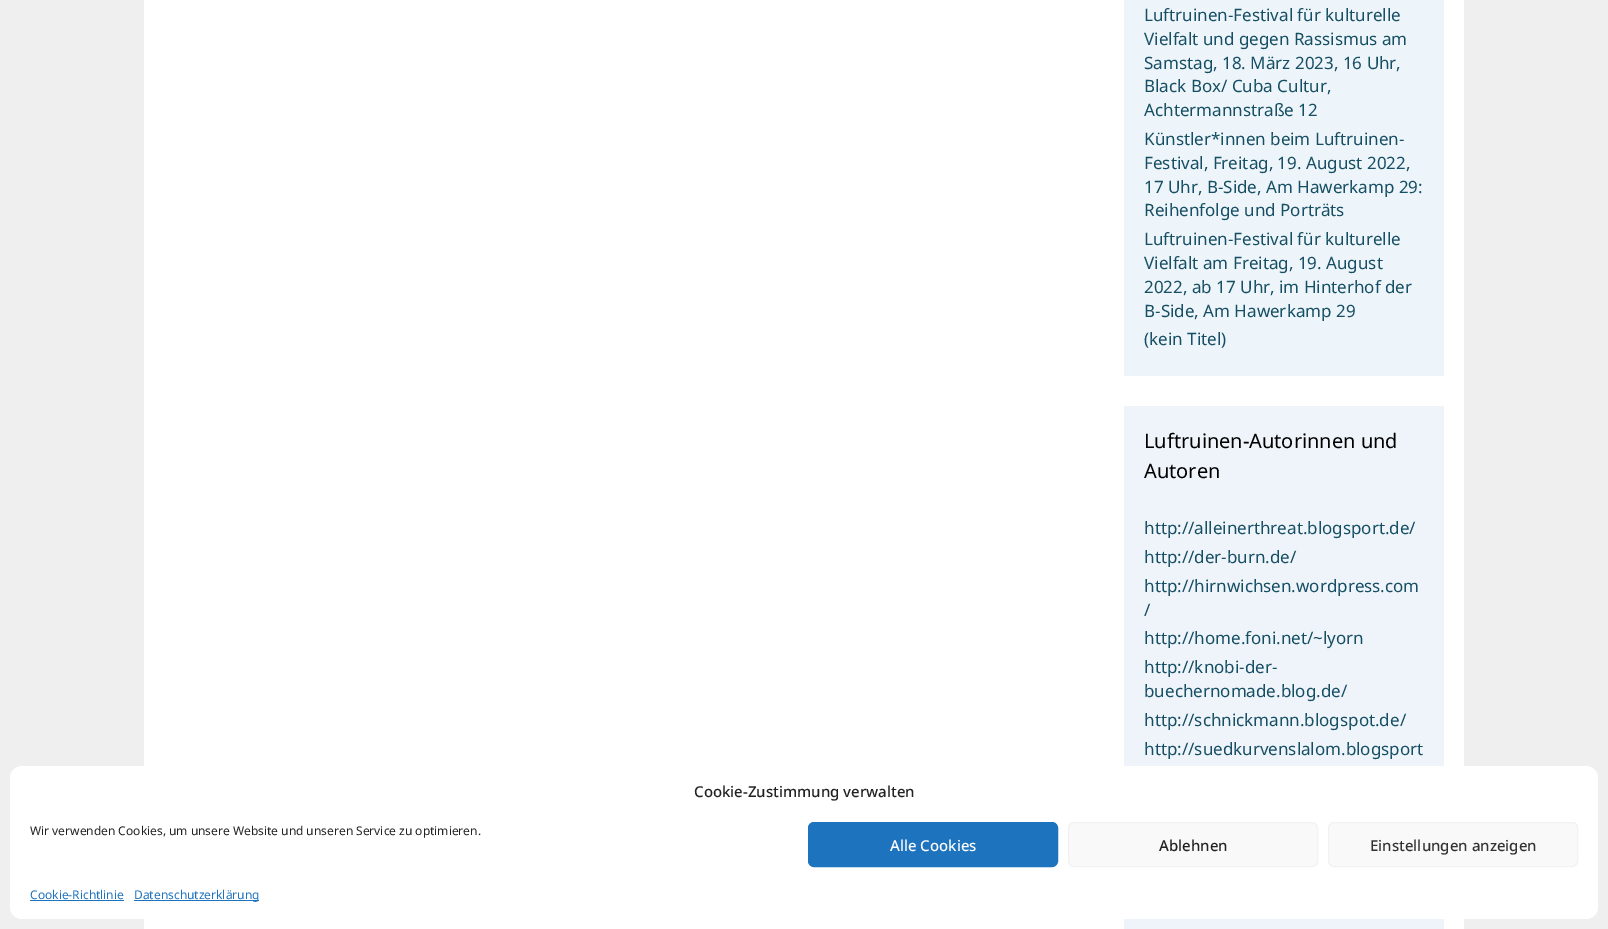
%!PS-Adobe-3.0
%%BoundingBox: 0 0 1608 929
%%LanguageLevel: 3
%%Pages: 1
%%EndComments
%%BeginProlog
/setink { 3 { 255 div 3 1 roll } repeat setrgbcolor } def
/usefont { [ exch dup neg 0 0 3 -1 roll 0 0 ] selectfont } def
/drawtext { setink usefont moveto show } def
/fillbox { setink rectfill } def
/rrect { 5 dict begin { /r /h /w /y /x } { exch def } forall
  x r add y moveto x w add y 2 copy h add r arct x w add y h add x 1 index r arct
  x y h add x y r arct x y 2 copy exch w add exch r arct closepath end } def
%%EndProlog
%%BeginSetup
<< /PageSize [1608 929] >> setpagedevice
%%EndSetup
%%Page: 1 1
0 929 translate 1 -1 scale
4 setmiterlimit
0 0 1608 929 239 239 239 fillbox
144 0 1320 929 255 255 255 fillbox
1124 0 320 376 237 244 250 fillbox
(Luftruinen-Festival für kulturelle) 1144 21 /NotoSans-Regular 17 22 79 99 drawtext
(Vielfalt und gegen Rassismus am) 1144 45 /NotoSans-Regular 17 22 79 99 drawtext
(Samstag, 18. März 2023, 16 Uhr,) 1144 69 /NotoSans-Regular 17 22 79 99 drawtext
(Black Box/ Cuba Cultur,) 1144 92 /NotoSans-Regular 17 22 79 99 drawtext
(Achtermannstraße 12) 1144 116 /NotoSans-Regular 17 22 79 99 drawtext
(Künstler*innen beim Luftruinen-) 1144 145 /NotoSans-Regular 17 22 79 99 drawtext
(Festival, Freitag, 19. August 2022,) 1144 169 /NotoSans-Regular 17 22 79 99 drawtext
(17 Uhr, B-Side, Am Hawerkamp 29:) 1144 193 /NotoSans-Regular 17 22 79 99 drawtext
(Reihenfolge und Porträts) 1144 216 /NotoSans-Regular 17 22 79 99 drawtext
(Luftruinen-Festival für kulturelle) 1144 245 /NotoSans-Regular 17 22 79 99 drawtext
(Vielfalt am Freitag, 19. August) 1144 269 /NotoSans-Regular 17 22 79 99 drawtext
(2022, ab 17 Uhr, im Hinterhof der) 1144 293 /NotoSans-Regular 17 22 79 99 drawtext
(B-Side, Am Hawerkamp 29) 1144 317 /NotoSans-Regular 17 22 79 99 drawtext
(\(kein Titel\)) 1144 345 /NotoSans-Regular 17 22 79 99 drawtext
1124 406 320 523 238 244 250 fillbox
(Luftruinen-Autorinnen und) 1144 448 /NotoSans-Regular 20 0 0 0 drawtext
(Autoren) 1144 478 /NotoSans-Regular 20 0 0 0 drawtext
(http://alleinerthreat.blogsport.de/) 1144 534 /NotoSans-Regular 17 22 79 99 drawtext
(http://der-burn.de/) 1144 563 /NotoSans-Regular 17 22 79 99 drawtext
(http://hirnwichsen.wordpress.com) 1144 592 /NotoSans-Regular 17 22 79 99 drawtext
(/) 1144 616 /NotoSans-Regular 17 22 79 99 drawtext
(http://home.foni.net/~lyorn) 1144 644 /NotoSans-Regular 17 22 79 99 drawtext
(http://knobi-der-) 1144 673 /NotoSans-Regular 17 22 79 99 drawtext
(buechernomade.blog.de/) 1144 697 /NotoSans-Regular 17 22 79 99 drawtext
(http://schnickmann.blogspot.de/) 1144 726 /NotoSans-Regular 17 22 79 99 drawtext
(http://suedkurvenslalom.blogsport) 1144 755 /NotoSans-Regular 17 22 79 99 drawtext
255 255 255 setink
10 766 1588 153 12 rrect fill
(Cookie-Zustimmung verwalten) 694 797 /NotoSans-Medium 15 34 34 34 drawtext
(Wir verwenden Cookies, um unsere Website und unseren Service zu optimieren.) 30 835 /NotoSans-Regular 12 34 34 34 drawtext
30 115 190 setink
808.5 822.5 249 44 5.5 rrect gsave fill grestore
stroke
(Alle Cookies) 890 851 /NotoSans-Medium 15 255 255 255 drawtext
249 249 249 setink
1068.5 822.5 249 44 5.5 rrect gsave fill grestore
242 242 242 setink
stroke
(Ablehnen) 1159 851 /NotoSans-Medium 15 34 34 34 drawtext
249 249 249 setink
1328.5 822.5 249 44 5.5 rrect gsave fill grestore
242 242 242 setink
stroke
(Einstellungen anzeigen) 1370 851 /NotoSans-Medium 15 51 51 51 drawtext
(Cookie-Richtlinie) 30 899 /NotoSans-Regular 12 30 115 190 drawtext
30 900 94 1 30 115 190 fillbox
134 900 125 1 30 115 190 fillbox
(Datenschutzerklärung) 134 899 /NotoSans-Regular 12 30 115 190 drawtext
showpage
%%EOF
